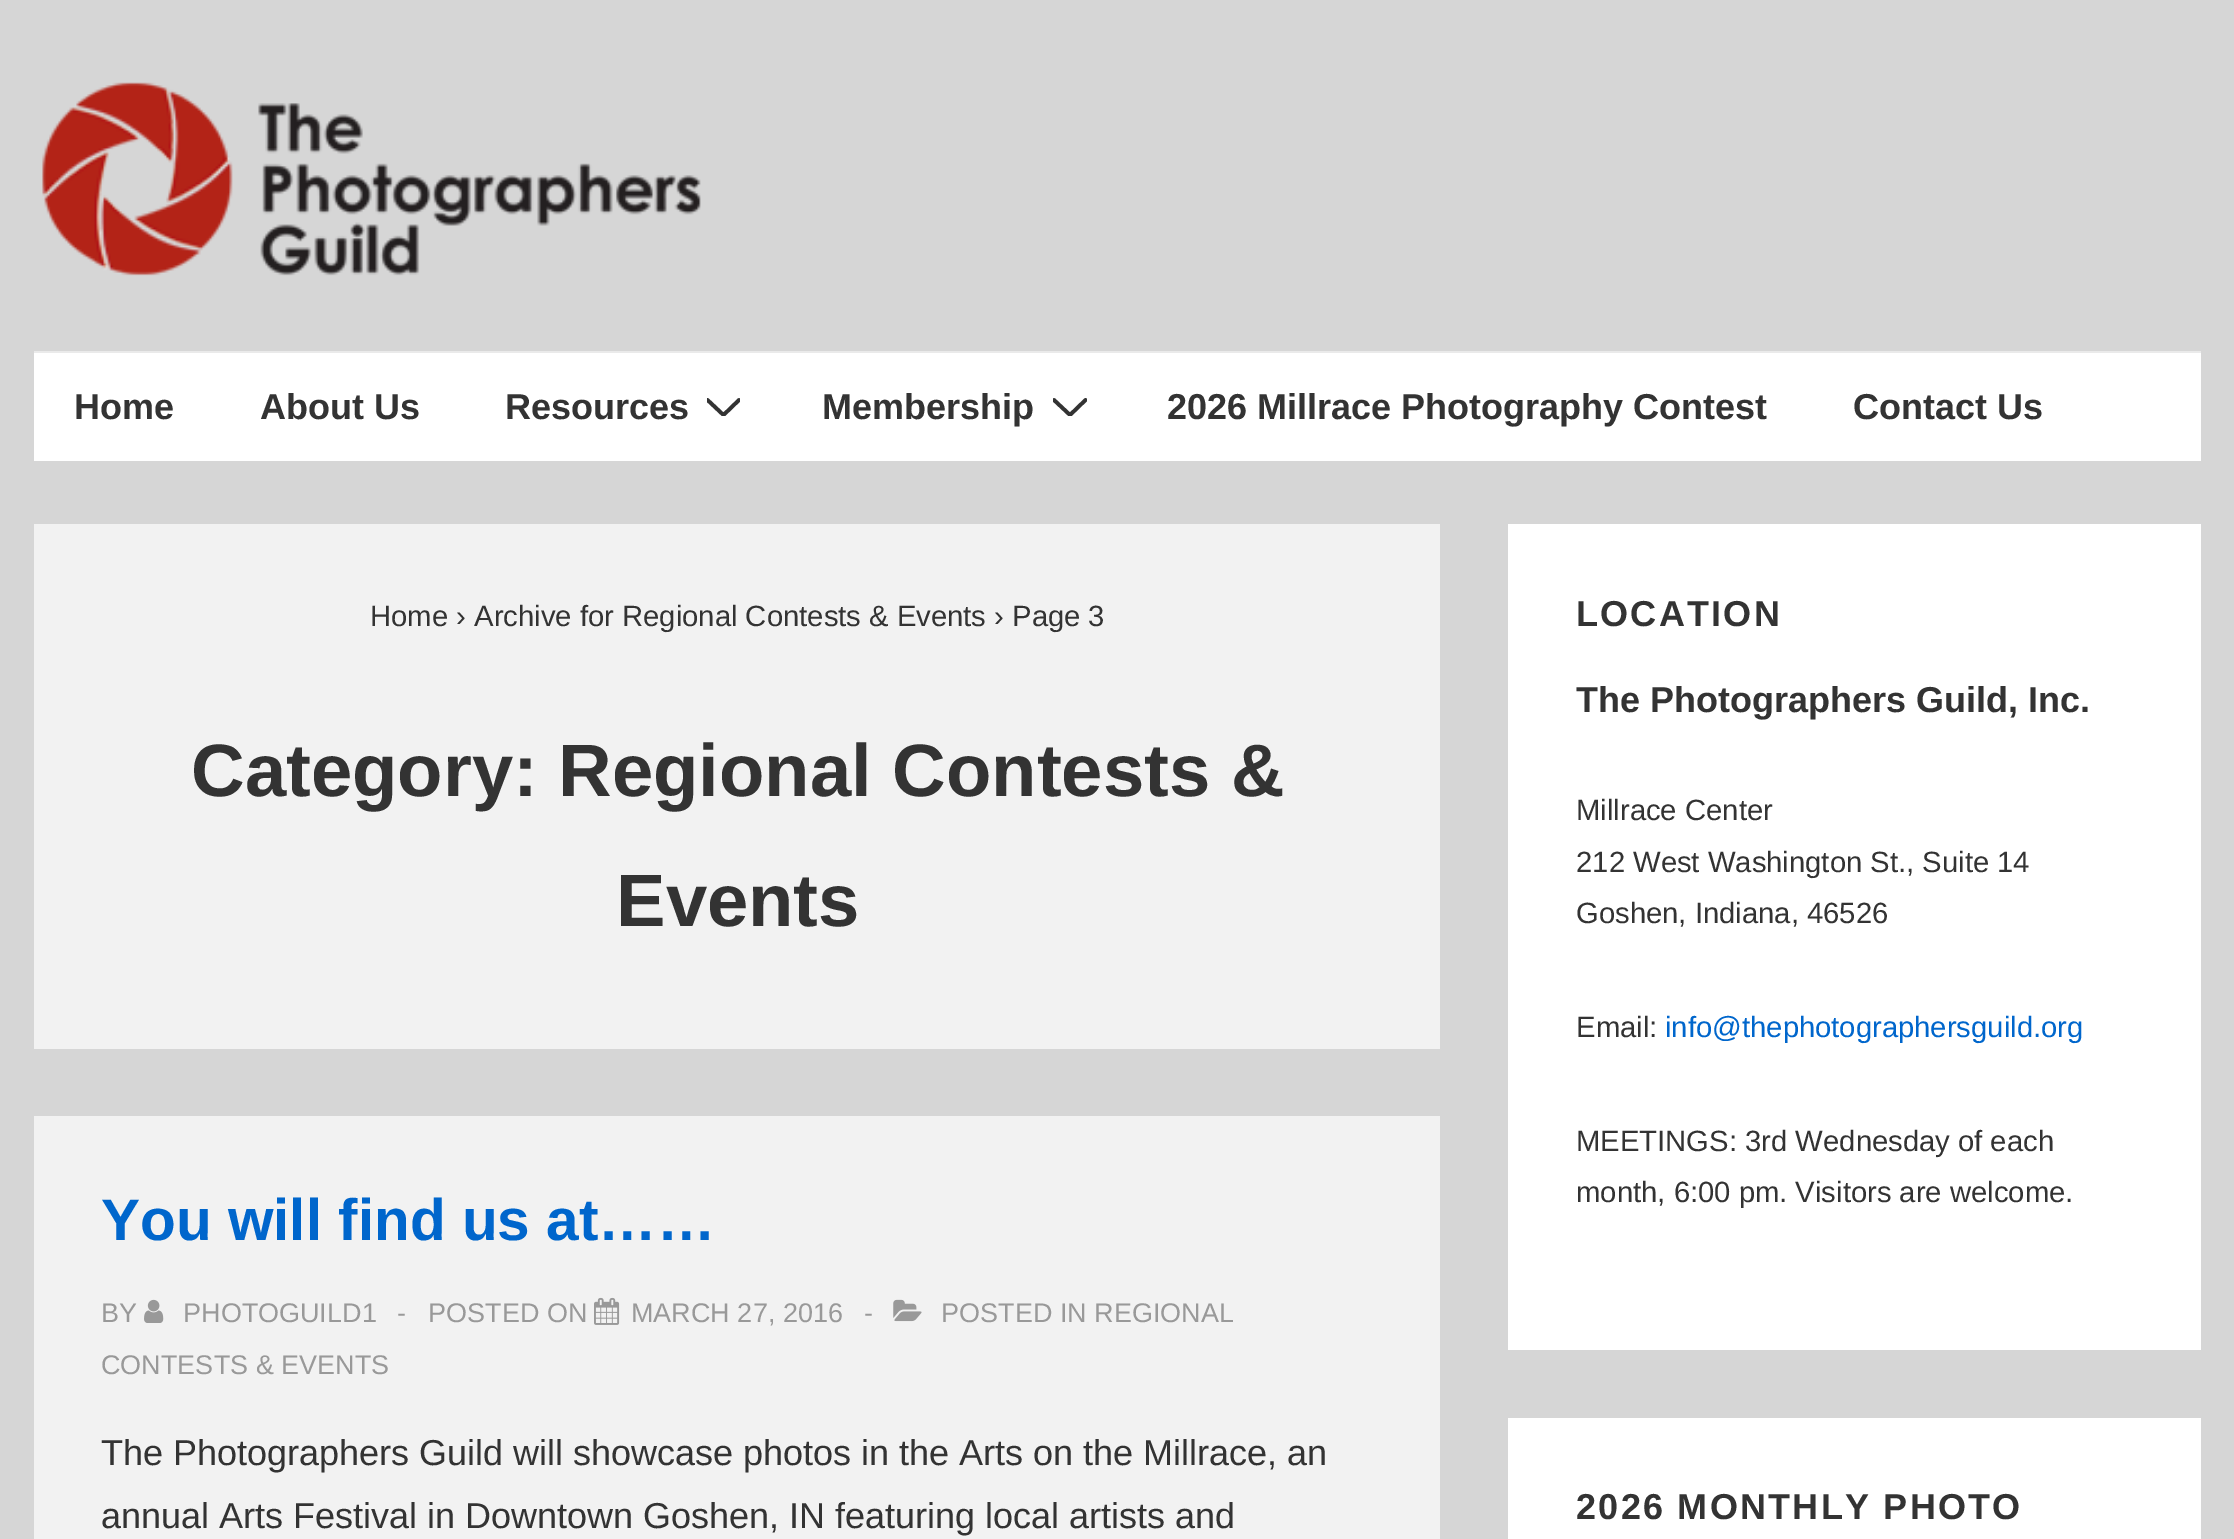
%!PS-Adobe-3.0
%%BoundingBox: 0 0 2234 1539
%%LanguageLevel: 3
%%Pages: 1
%%EndComments
%%BeginProlog
/setink { 3 { 255 div 3 1 roll } repeat setrgbcolor } def
/usefont { [ exch dup neg 0 0 3 -1 roll 0 0 ] selectfont } def
/drawtext { setink usefont moveto show } def
/fillbox { setink rectfill } def
/drawimage { 5 dict begin { /h /w /y /x /name } { exch def } forall
  gsave x y translate w h scale
  w h 8 [w 0 0 h 0 0] name (r) file false 3 colorimage grestore end } def
%%EndProlog
%%BeginSetup
<< /PageSize [2234 1539] >> setpagedevice
%%EndSetup
%%Page: 1 1
0 1539 translate 1 -1 scale
4 setmiterlimit
0 0 2234 1539 214 214 214 fillbox
(assets/img1.rgb) 42 82 659 194 drawimage
34 353 2167 108 255 255 255 fillbox
34 351 2167 2 234 234 234 fillbox
(Home) 74 419 /LiberationSans-Bold 36 51 51 51 drawtext
(About Us) 260 419 /LiberationSans-Bold 36 51 51 51 drawtext
(Resources) 505 419 /LiberationSans-Bold 36 51 51 51 drawtext
gsave
707 398 33 18 rectclip
3.7 setlinewidth
1 setlinecap
707.5 400 moveto 723.5 415 lineto 739 400 lineto stroke
grestore
(Membership) 822 419 /LiberationSans-Bold 36 51 51 51 drawtext
gsave
1053 398 34 18 rectclip
3.7 setlinewidth
1 setlinecap
1054 400 moveto 1070 415 lineto 1085.5 400 lineto stroke
grestore
(2026 Millrace Photography Contest) 1167 419 /LiberationSans-Bold 36 51 51 51 drawtext
(Contact Us) 1853 419 /LiberationSans-Bold 36 51 51 51 drawtext
34 524 1406 525 242 242 242 fillbox
(Home › Archive for Regional Contests & Events › Page 3) 370 626 /LiberationSans-Regular 29.25 51 51 51 drawtext
(Category: Regional Contests &) 191 796 /LiberationSans-Bold 74.25 51 51 51 drawtext
(Events) 616 926 /LiberationSans-Bold 74.25 51 51 51 drawtext
34 1116 1406 423 242 242 242 fillbox
(You will find us at……) 101 1240 /LiberationSans-Bold 58.5 0 102 204 drawtext
(BY) 101 1322 /LiberationSans-Regular 27 153 153 153 drawtext
(assets/img2.rgb) 144 1299 20 24 drawimage
(PHOTOGUILD1) 183 1322 /LiberationSans-Regular 27 153 153 153 drawtext
(-) 397 1322 /LiberationSans-Regular 27 153 153 153 drawtext
(POSTED ON) 428 1322 /LiberationSans-Regular 27 153 153 153 drawtext
(assets/img3.rgb) 594 1297 26 28 drawimage
(MARCH 27, 2016) 631 1322 /LiberationSans-Regular 27 153 153 153 drawtext
(-) 864 1322 /LiberationSans-Regular 27 153 153 153 drawtext
(assets/img4.rgb) 893 1299 29 23 drawimage
(POSTED IN REGIONAL) 941 1322 /LiberationSans-Regular 27 153 153 153 drawtext
(CONTESTS & EVENTS) 101 1374 /LiberationSans-Regular 27 153 153 153 drawtext
(The Photographers Guild will showcase photos in the Arts on the Millrace, an) 101 1465 /LiberationSans-Regular 36 51 51 51 drawtext
(annual Arts Festival in Downtown Goshen, IN featuring local artists and) 101 1528 /LiberationSans-Regular 36 51 51 51 drawtext
1508 524 693 826 255 255 255 fillbox
/LiberationSans-Bold 36 usefont
51 51 51 setink
1576 626 moveto 2.25 0 (LOCATION) ashow
(The Photographers Guild, Inc.) 1576 712 /LiberationSans-Bold 36 51 51 51 drawtext
(Millrace Center) 1576 820 /LiberationSans-Regular 29.25 51 51 51 drawtext
(212 West Washington St., Suite 14) 1576 872 /LiberationSans-Regular 29.25 51 51 51 drawtext
(Goshen, Indiana, 46526) 1576 923 /LiberationSans-Regular 29.25 51 51 51 drawtext
(Email:) 1576 1037 /LiberationSans-Regular 29.25 51 51 51 drawtext
(info@thephotographersguild.org) 1665 1037 /LiberationSans-Regular 29.25 0 102 204 drawtext
(MEETINGS: 3rd Wednesday of each) 1576 1151 /LiberationSans-Regular 29.25 51 51 51 drawtext
(month, 6:00 pm. Visitors are welcome.) 1576 1202 /LiberationSans-Regular 29.25 51 51 51 drawtext
1508 1418 693 121 255 255 255 fillbox
/LiberationSans-Bold 36 usefont
51 51 51 setink
1576 1519 moveto 2.25 0 (2026 MONTHLY PHOTO) ashow
showpage
%%EOF
